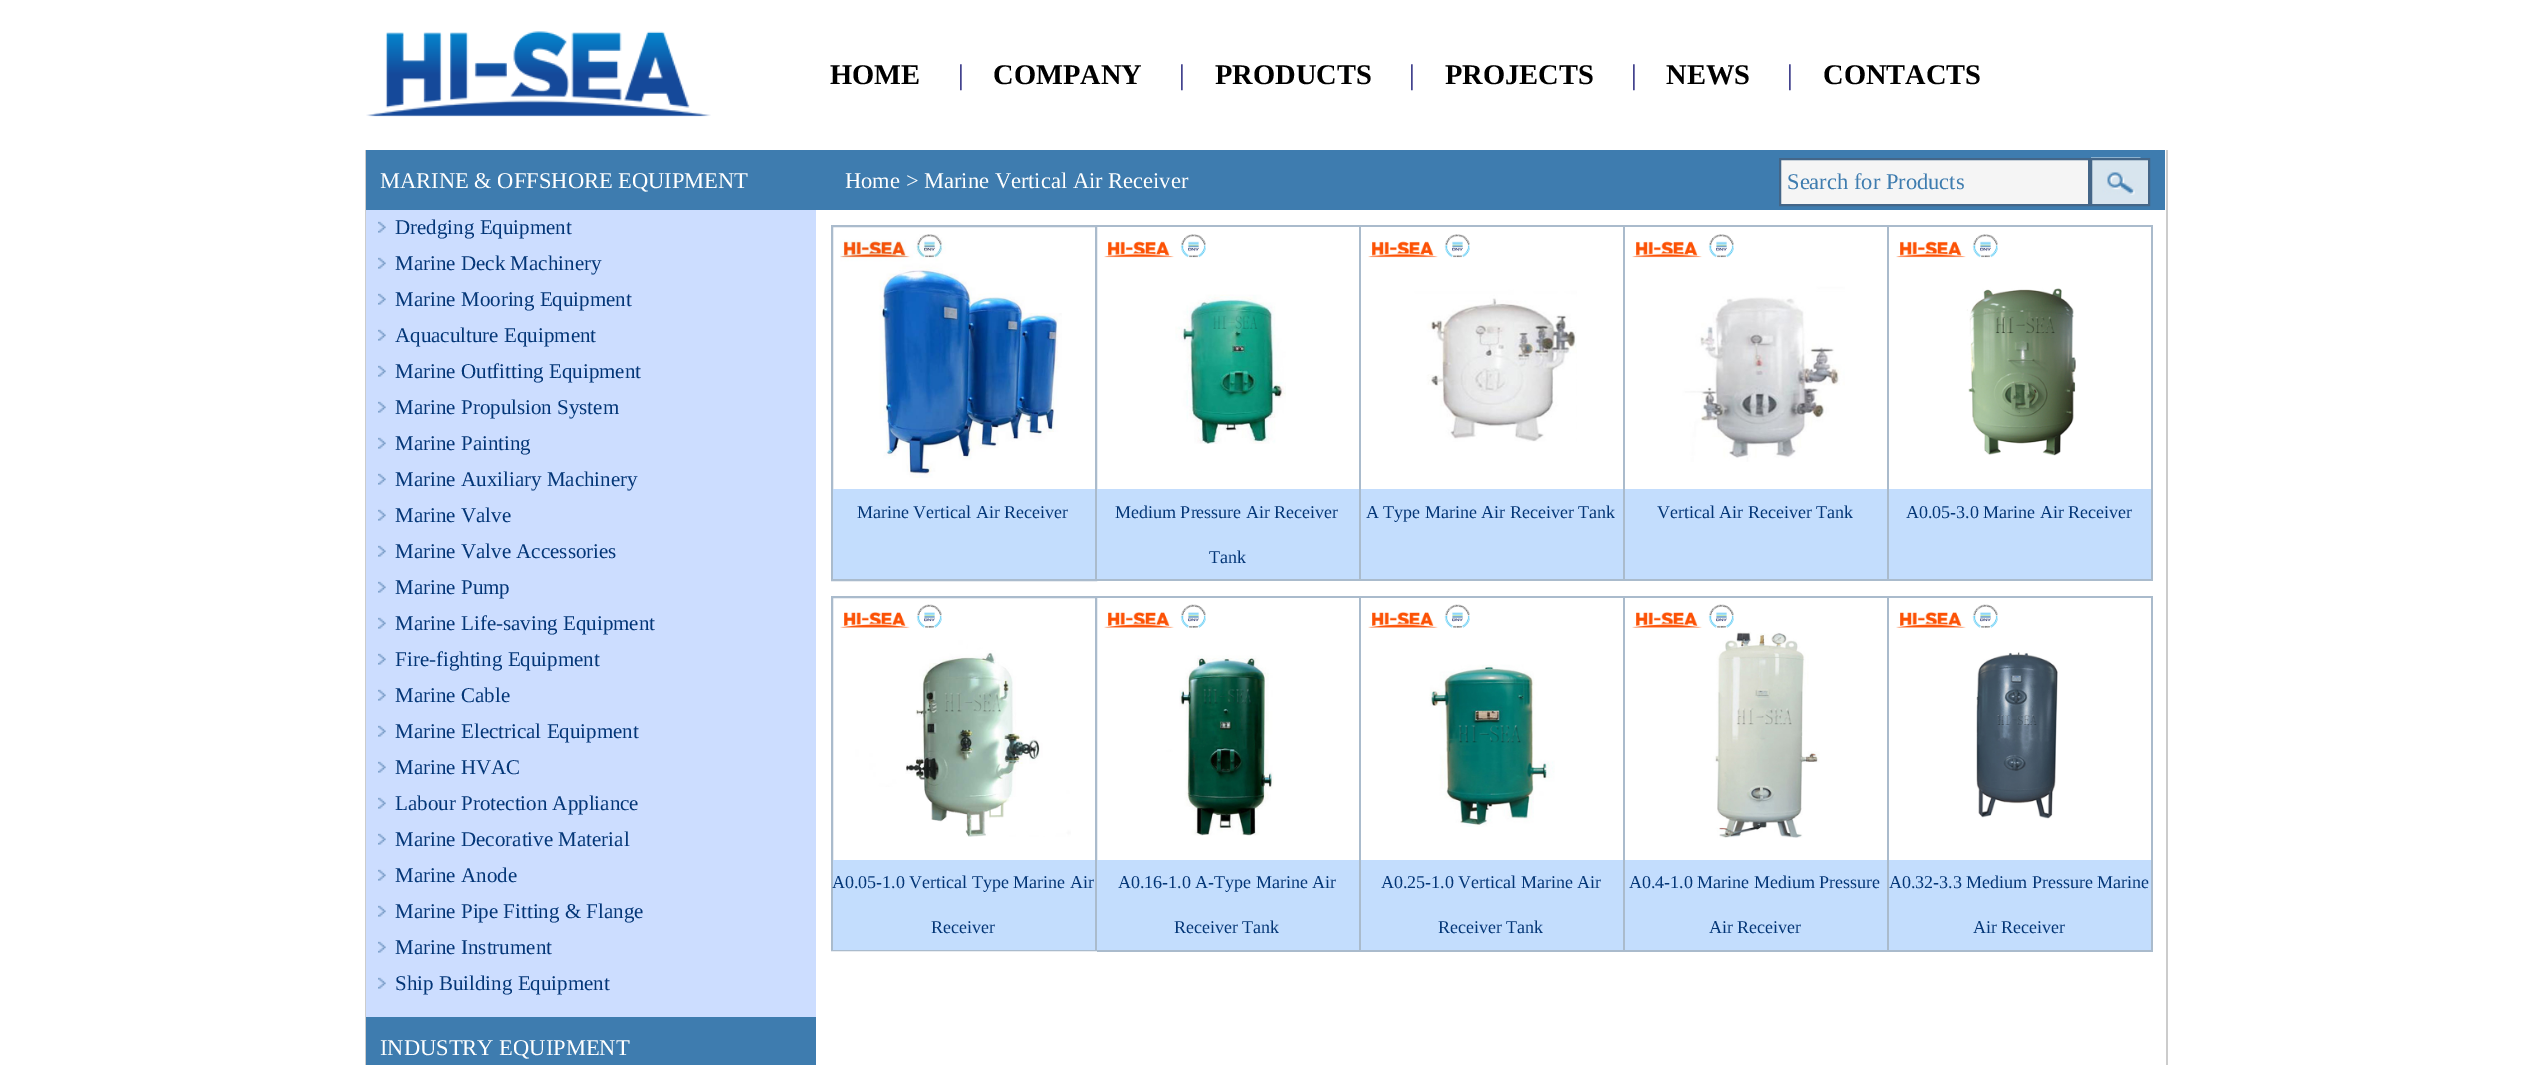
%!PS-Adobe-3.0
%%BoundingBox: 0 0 2530 1065
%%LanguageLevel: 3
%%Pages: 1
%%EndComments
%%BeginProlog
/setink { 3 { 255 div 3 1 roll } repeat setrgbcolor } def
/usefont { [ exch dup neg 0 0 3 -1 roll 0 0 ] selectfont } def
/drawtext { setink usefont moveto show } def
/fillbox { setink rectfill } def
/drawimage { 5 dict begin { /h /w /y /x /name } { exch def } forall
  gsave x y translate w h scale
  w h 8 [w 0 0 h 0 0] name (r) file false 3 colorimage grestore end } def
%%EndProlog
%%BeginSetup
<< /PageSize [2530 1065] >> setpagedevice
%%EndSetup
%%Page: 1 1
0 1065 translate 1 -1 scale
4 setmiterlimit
0 0 2530 1065 255 255 255 fillbox
(assets/img1.rgb) 366 31 345 86 drawimage
(HOME) 830 84 /LiberationSerif-Bold 28.5 0 0 0 drawtext
(|) 958 84 /LiberationSerif-Regular 28.5 0 0 102 drawtext
(COMPANY) 993 84 /LiberationSerif-Bold 28.5 0 0 0 drawtext
(|) 1179 84 /LiberationSerif-Regular 28.5 0 0 102 drawtext
(PRODUCTS) 1215 84 /LiberationSerif-Bold 28.5 0 0 0 drawtext
(|) 1409 84 /LiberationSerif-Regular 28.5 0 0 102 drawtext
(PROJECTS) 1445 84 /LiberationSerif-Bold 28.5 0 0 0 drawtext
(|) 1631 84 /LiberationSerif-Regular 28.5 0 0 102 drawtext
(NEWS) 1666 84 /LiberationSerif-Bold 28.5 0 0 0 drawtext
(|) 1787 84 /LiberationSerif-Regular 28.5 0 0 102 drawtext
(CONTACTS) 1823 84 /LiberationSerif-Bold 28.5 0 0 0 drawtext
2166 150 2 915 204 204 204 fillbox
365 150 1 915 204 204 204 fillbox
366 210 450 807 204 221 255 fillbox
366 150 1799 60 62 124 175 fillbox
(MARINE & OFFSHORE EQUIPMENT) 380 188 /LiberationSerif-Regular 22.5 255 255 255 drawtext
(assets/img2.rgb) 378 221 8 12 drawimage
(Dredging Equipment) 395 234 /LiberationSerif-Regular 21 3 54 119 drawtext
(assets/img2.rgb) 378 257 8 12 drawimage
(Marine Deck Machinery) 395 270 /LiberationSerif-Regular 21 3 54 119 drawtext
(assets/img2.rgb) 378 293 8 12 drawimage
(Marine Mooring Equipment) 395 306 /LiberationSerif-Regular 21 3 54 119 drawtext
(assets/img2.rgb) 378 329 8 12 drawimage
(Aquaculture Equipment) 395 342 /LiberationSerif-Regular 21 3 54 119 drawtext
(assets/img2.rgb) 378 365 8 12 drawimage
(Marine Outfitting Equipment) 395 378 /LiberationSerif-Regular 21 3 54 119 drawtext
(assets/img2.rgb) 378 401 8 12 drawimage
(Marine Propulsion System) 395 414 /LiberationSerif-Regular 21 3 54 119 drawtext
(assets/img2.rgb) 378 437 8 12 drawimage
(Marine Painting) 395 450 /LiberationSerif-Regular 21 3 54 119 drawtext
(assets/img2.rgb) 378 473 8 12 drawimage
(Marine Auxiliary Machinery) 395 486 /LiberationSerif-Regular 21 3 54 119 drawtext
(assets/img2.rgb) 378 509 8 12 drawimage
(Marine Valve) 395 522 /LiberationSerif-Regular 21 3 54 119 drawtext
(assets/img2.rgb) 378 545 8 12 drawimage
(Marine Valve Accessories) 395 558 /LiberationSerif-Regular 21 3 54 119 drawtext
(assets/img2.rgb) 378 581 8 12 drawimage
(Marine Pump) 395 594 /LiberationSerif-Regular 21 3 54 119 drawtext
(assets/img2.rgb) 378 617 8 12 drawimage
(Marine Life-saving Equipment) 395 630 /LiberationSerif-Regular 21 3 54 119 drawtext
(assets/img2.rgb) 378 653 8 12 drawimage
(Fire-fighting Equipment) 395 666 /LiberationSerif-Regular 21 3 54 119 drawtext
(assets/img2.rgb) 378 689 8 12 drawimage
(Marine Cable) 395 702 /LiberationSerif-Regular 21 3 54 119 drawtext
(assets/img2.rgb) 378 725 8 12 drawimage
(Marine Electrical Equipment) 395 738 /LiberationSerif-Regular 21 3 54 119 drawtext
(assets/img2.rgb) 378 761 8 12 drawimage
(Marine HVAC) 395 774 /LiberationSerif-Regular 21 3 54 119 drawtext
(assets/img2.rgb) 378 797 8 12 drawimage
(Labour Protection Appliance) 395 810 /LiberationSerif-Regular 21 3 54 119 drawtext
(assets/img2.rgb) 378 833 8 12 drawimage
(Marine Decorative Material) 395 846 /LiberationSerif-Regular 21 3 54 119 drawtext
(assets/img2.rgb) 378 869 8 12 drawimage
(Marine Anode) 395 882 /LiberationSerif-Regular 21 3 54 119 drawtext
(assets/img2.rgb) 378 905 8 12 drawimage
(Marine Pipe Fitting & Flange) 395 918 /LiberationSerif-Regular 21 3 54 119 drawtext
(assets/img2.rgb) 378 941 8 12 drawimage
(Marine Instrument) 395 954 /LiberationSerif-Regular 21 3 54 119 drawtext
(assets/img2.rgb) 378 977 8 12 drawimage
(Ship Building Equipment) 395 990 /LiberationSerif-Regular 21 3 54 119 drawtext
366 1017 450 48 62 124 175 fillbox
(INDUSTRY EQUIPMENT) 380 1055 /LiberationSerif-Regular 22.5 255 255 255 drawtext
(Home > Marine Vertical Air Receiver) 845 188 /LiberationSerif-Regular 22.5 255 255 255 drawtext
245 245 245 setink
1780 159 moveto 2089 159 lineto 2089 205 lineto 1780 205 lineto closepath gsave fill grestore
68 102 136 setink
2 setlinewidth
stroke
(Search for Products) 1787 189 /LiberationSerif-Regular 22.5 62 124 175 drawtext
2092 160 56 44 216 229 239 fillbox
(assets/img3.rgb) 2091 157 50 38 drawimage
68 102 136 setink
2091 159 58 46 rectstroke
170 187 204 setink
832 226 264 354 rectstroke
(assets/img4.rgb) 840 234 222 244 drawimage
833 489 262 90 195 221 253 fillbox
(Marine Vertical Air Receiver) 857 518 /LiberationSerif-Regular 18 3 54 119 drawtext
1097 225 1056 2 170 187 204 fillbox
1359 225 2 356 170 187 204 fillbox
1097 579 264 2 170 187 204 fillbox
(assets/img5.rgb) 1104 234 182 210 drawimage
1097 489 262 90 195 221 253 fillbox
(Medium Pressure Air Receiver) 1115 518 /LiberationSerif-Regular 18 3 54 119 drawtext
(Tank) 1209 563 /LiberationSerif-Regular 18 3 54 119 drawtext
1623 225 2 356 170 187 204 fillbox
1361 579 264 2 170 187 204 fillbox
(assets/img6.rgb) 1368 234 209 208 drawimage
1361 489 262 90 195 221 253 fillbox
(A Type Marine Air Receiver Tank) 1366 518 /LiberationSerif-Regular 18 3 54 119 drawtext
1887 225 2 356 170 187 204 fillbox
1625 579 264 2 170 187 204 fillbox
(assets/img7.rgb) 1632 234 213 228 drawimage
1625 489 262 90 195 221 253 fillbox
(Vertical Air Receiver Tank) 1657 518 /LiberationSerif-Regular 18 3 54 119 drawtext
2151 225 2 356 170 187 204 fillbox
1889 579 264 2 170 187 204 fillbox
(assets/img8.rgb) 1896 234 180 222 drawimage
1889 489 262 90 195 221 253 fillbox
(A0.05-3.0 Marine Air Receiver) 1906 518 /LiberationSerif-Regular 18 3 54 119 drawtext
170 187 204 setink
832 597 264 353 rectstroke
(assets/img9.rgb) 840 604 231 233 drawimage
833 860 262 90 195 221 253 fillbox
(A0.05-1.0 Vertical Type Marine Air) 832 888 /LiberationSerif-Regular 18 3 54 119 drawtext
(Receiver) 931 933 /LiberationSerif-Regular 18 3 54 119 drawtext
1097 596 1056 2 170 187 204 fillbox
1359 596 2 355 170 187 204 fillbox
1097 950 264 2 170 187 204 fillbox
(assets/img10.rgb) 1104 604 170 232 drawimage
1097 860 262 90 195 221 253 fillbox
(A0.16-1.0 A-Type Marine Air) 1118 888 /LiberationSerif-Regular 18 3 54 119 drawtext
(Receiver Tank) 1174 933 /LiberationSerif-Regular 18 3 54 119 drawtext
1623 596 2 355 170 187 204 fillbox
1361 950 264 2 170 187 204 fillbox
(assets/img11.rgb) 1368 604 187 223 drawimage
1361 860 262 90 195 221 253 fillbox
(A0.25-1.0 Vertical Marine Air) 1381 888 /LiberationSerif-Regular 18 3 54 119 drawtext
(Receiver Tank) 1438 933 /LiberationSerif-Regular 18 3 54 119 drawtext
1887 596 2 355 170 187 204 fillbox
1625 950 264 2 170 187 204 fillbox
(assets/img12.rgb) 1632 604 188 234 drawimage
1625 860 262 90 195 221 253 fillbox
(A0.4-1.0 Marine Medium Pressure) 1629 888 /LiberationSerif-Regular 18 3 54 119 drawtext
(Air Receiver) 1709 933 /LiberationSerif-Regular 18 3 54 119 drawtext
2151 596 2 355 170 187 204 fillbox
1889 950 264 2 170 187 204 fillbox
(assets/img13.rgb) 1896 604 162 215 drawimage
1889 860 262 90 195 221 253 fillbox
(A0.32-3.3 Medium Pressure Marine) 1889 888 /LiberationSerif-Regular 18 3 54 119 drawtext
(Air Receiver) 1973 933 /LiberationSerif-Regular 18 3 54 119 drawtext
showpage
%%EOF
